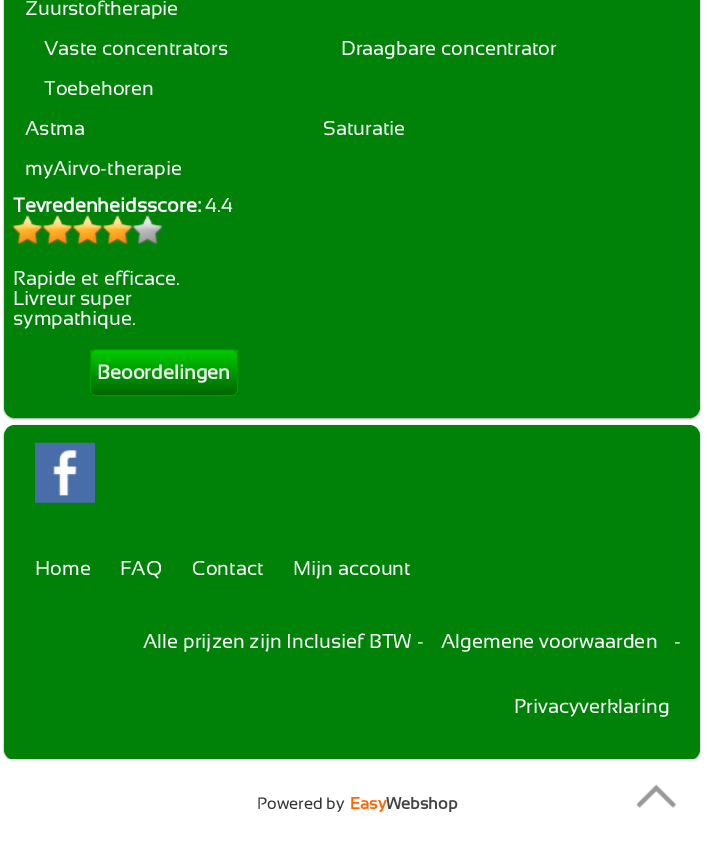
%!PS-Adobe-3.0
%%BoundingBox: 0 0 714 848
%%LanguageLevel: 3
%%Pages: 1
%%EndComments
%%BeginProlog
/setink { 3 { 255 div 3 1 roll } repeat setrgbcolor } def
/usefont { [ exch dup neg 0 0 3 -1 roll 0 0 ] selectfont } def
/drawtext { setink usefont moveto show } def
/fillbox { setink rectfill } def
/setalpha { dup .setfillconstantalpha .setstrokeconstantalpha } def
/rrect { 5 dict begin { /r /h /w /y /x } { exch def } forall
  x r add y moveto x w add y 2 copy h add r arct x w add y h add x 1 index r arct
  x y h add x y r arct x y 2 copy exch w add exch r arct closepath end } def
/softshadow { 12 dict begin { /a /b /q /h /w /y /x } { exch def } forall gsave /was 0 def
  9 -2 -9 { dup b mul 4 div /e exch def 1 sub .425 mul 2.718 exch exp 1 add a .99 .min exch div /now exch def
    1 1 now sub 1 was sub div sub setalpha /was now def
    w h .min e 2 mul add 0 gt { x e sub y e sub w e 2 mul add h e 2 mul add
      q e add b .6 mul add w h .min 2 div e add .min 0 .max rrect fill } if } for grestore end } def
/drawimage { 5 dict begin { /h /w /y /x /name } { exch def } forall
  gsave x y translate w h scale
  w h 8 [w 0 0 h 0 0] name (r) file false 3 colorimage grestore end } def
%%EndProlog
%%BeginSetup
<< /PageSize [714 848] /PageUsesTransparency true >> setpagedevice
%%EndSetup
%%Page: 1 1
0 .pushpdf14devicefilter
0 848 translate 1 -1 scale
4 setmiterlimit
0 0 714 848 255 255 255 fillbox
0 0 0 setink
4 -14 696 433 11 1 0.4 softshadow
0 130 9 setink
4 -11 696 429 11 rrect fill
(Zuurstoftherapie) 25 15 /Sansation-Regular 20 255 255 255 drawtext
(Vaste concentrators) 44 55 /Sansation-Regular 20 255 255 255 drawtext
(Draagbare concentrator) 341 55 /Sansation-Regular 20 255 255 255 drawtext
(Toebehoren) 44 95 /Sansation-Regular 20 255 255 255 drawtext
(Astma) 25 135 /Sansation-Regular 20 255 255 255 drawtext
(Saturatie) 323 135 /Sansation-Regular 20 255 255 255 drawtext
(myAirvo-therapie) 25 175 /Sansation-Regular 20 255 255 255 drawtext
(Tevredenheidsscore:) 13 212 /Sansation-Bold 20 255 255 255 drawtext
(4.4) 205 212 /Sansation-Regular 20 255 255 255 drawtext
(assets/img1.rgb) 12 215 31 31 drawimage
(assets/img2.rgb) 42 215 31 31 drawimage
(assets/img2.rgb) 72 215 31 31 drawimage
(assets/img3.rgb) 102 215 31 31 drawimage
(assets/img4.rgb) 132 215 31 30 drawimage
(Rapide et efficace.) 13 285 /Sansation-Regular 20 255 255 255 drawtext
(Livreur super) 13 305 /Sansation-Regular 20 255 255 255 drawtext
(sympathique.) 13 325 /Sansation-Regular 20 255 255 255 drawtext
gsave
90 349 148 47 6 rrect clip newpath
gsave 90 350 moveto 238 350 lineto 238 395 lineto 90 395 lineto closepath clip newpath
<< /ShadingType 2 /ColorSpace /DeviceRGB /Coords [91 350 91 395] /Extend [true true] /Function << /FunctionType 2 /Domain [0 1] /C0 [0 0.8 0] /C1 [0 0.4 0] /N 1 >> >> shfill grestore
grestore
0 153 0 setink
90.5 349.5 147 46 5.5 rrect stroke
(Beoordelingen) 97 379 /Sansation-Bold 20 238 238 238 drawtext
0 0 0 setink
4 426 696 335 11 1 0.4 softshadow
0 130 9 setink
4 425 696 335 11 rrect fill
(assets/img5.rgb) 35 442 60 61 drawimage
(Home) 35 575 /Sansation-Regular 20 255 255 255 drawtext
(FAQ) 120 575 /Sansation-Regular 20 255 255 255 drawtext
(Contact) 192 575 /Sansation-Regular 20 255 255 255 drawtext
(Mijn account) 293 575 /Sansation-Regular 20 255 255 255 drawtext
(Alle prijzen zijn Inclusief BTW -) 143 648 /Sansation-Regular 20 255 255 255 drawtext
(Algemene voorwaarden) 441 648 /Sansation-Regular 20 255 255 255 drawtext
(-) 674 648 /Sansation-Regular 20 255 255 255 drawtext
(Privacyverklaring) 514 713 /Sansation-Regular 20 255 255 255 drawtext
6 759 692 4 255 255 255 fillbox
(Powered by) 257 809 /Sansation-Regular 16.5 51 51 51 drawtext
(Easy) 350 809 /Sansation-Bold 16.5 255 102 0 drawtext
(Webshop) 386 809 /Sansation-Bold 16.5 68 68 68 drawtext
(assets/img6.rgb) 636 784 40 24 drawimage
.poppdf14devicefilter showpage
%%EOF
